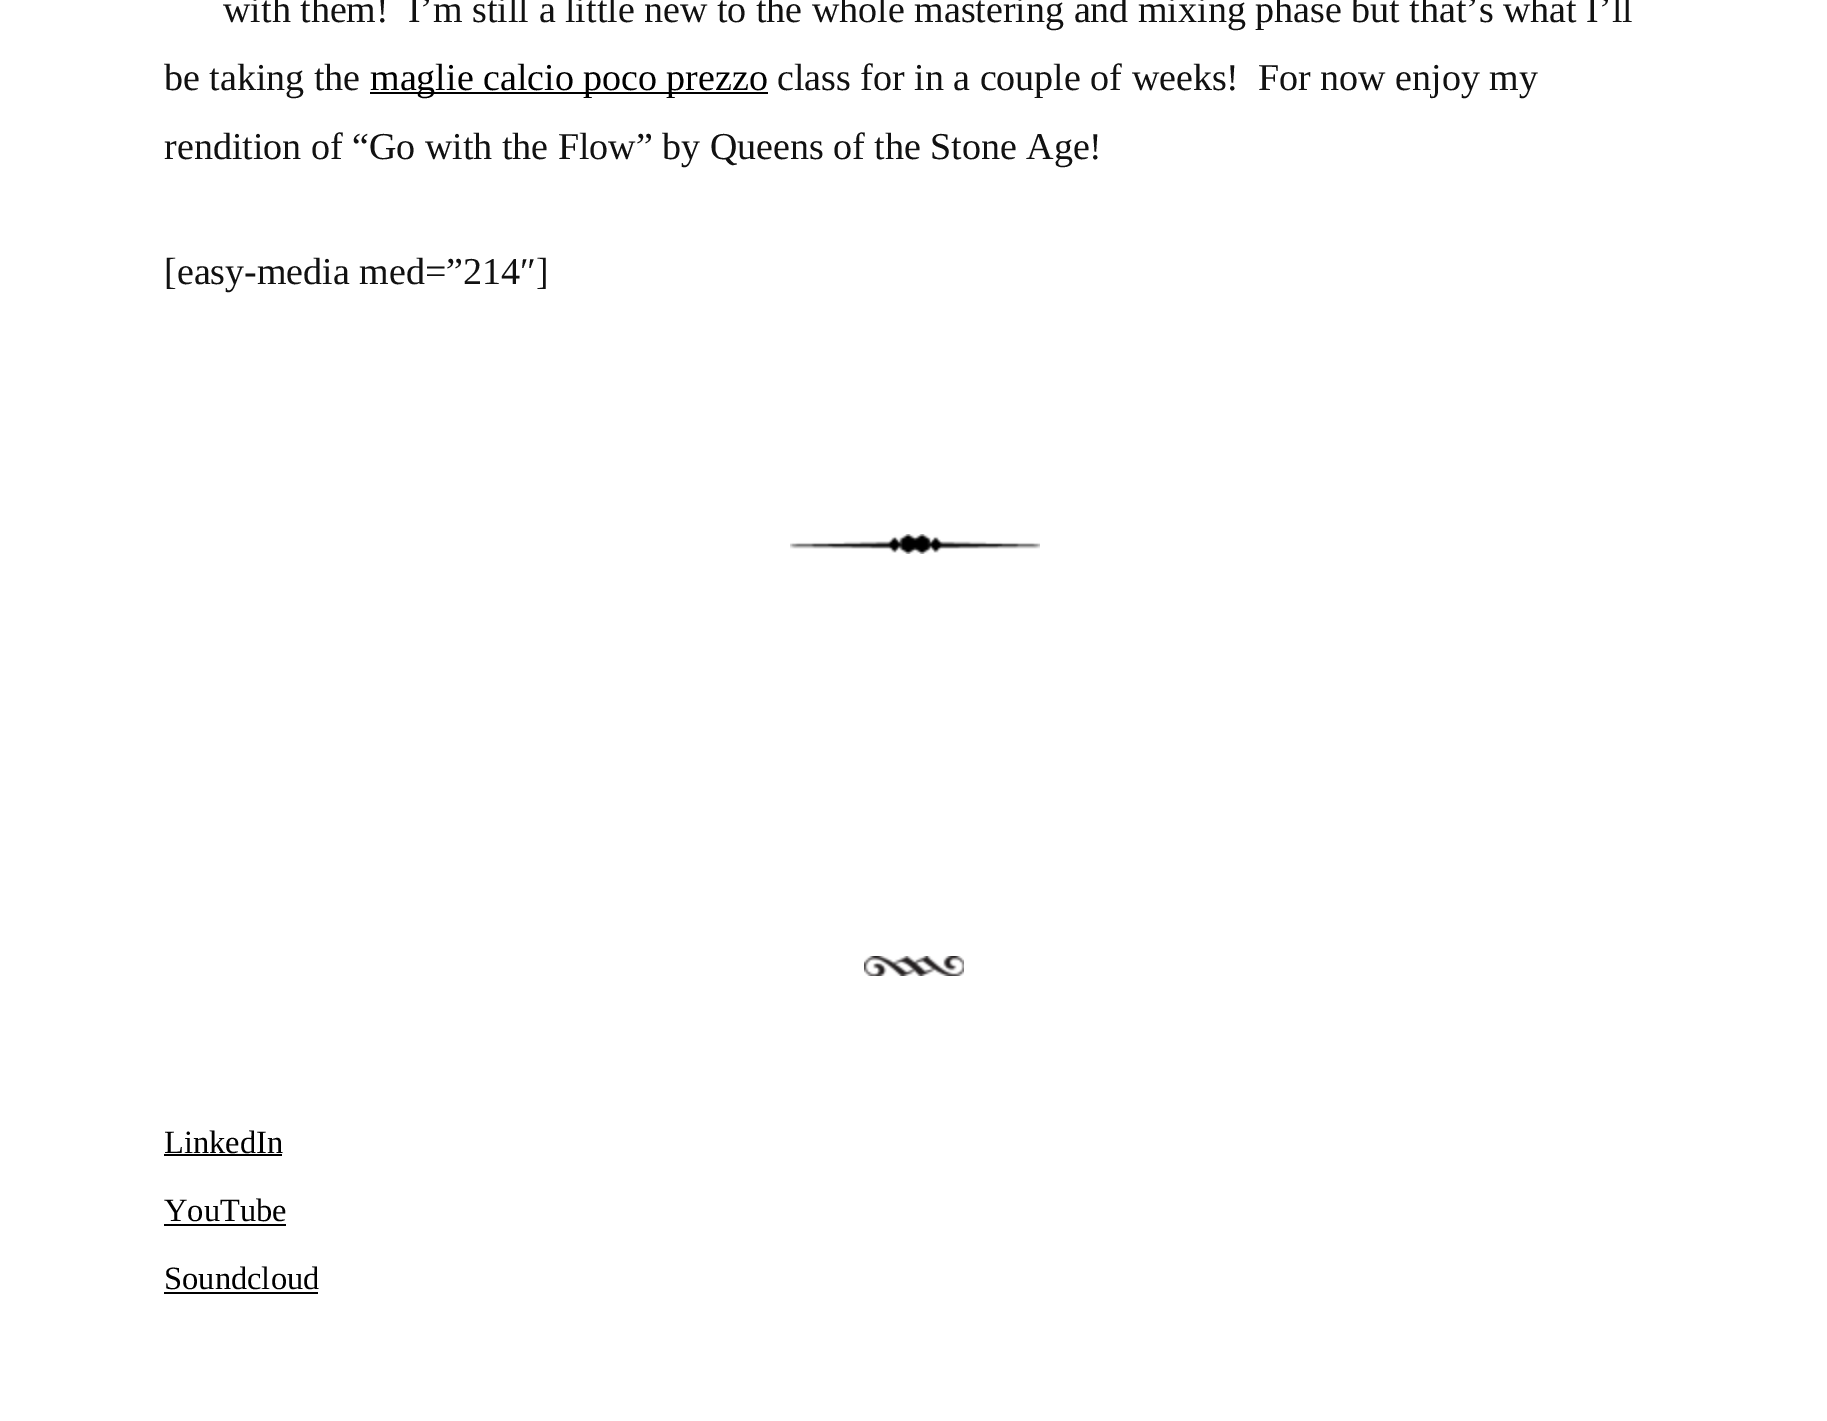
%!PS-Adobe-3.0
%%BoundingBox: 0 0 1827 1421
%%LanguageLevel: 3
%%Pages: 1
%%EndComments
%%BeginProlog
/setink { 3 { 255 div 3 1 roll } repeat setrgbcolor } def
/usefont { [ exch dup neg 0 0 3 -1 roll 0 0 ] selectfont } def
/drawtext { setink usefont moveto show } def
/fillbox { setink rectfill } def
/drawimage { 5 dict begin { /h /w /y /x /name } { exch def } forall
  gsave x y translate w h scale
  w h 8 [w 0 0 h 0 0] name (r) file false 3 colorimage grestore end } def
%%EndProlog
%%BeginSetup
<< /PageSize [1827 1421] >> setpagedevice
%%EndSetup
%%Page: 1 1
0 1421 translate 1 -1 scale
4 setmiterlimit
0 0 1827 1421 255 255 255 fillbox
(assets/img1.rgb) 790 534 250 20 drawimage
(with them!  I’m still a little new to the whole mastering and mixing phase but that’s what I’ll) 223 22 /LiberationSerif-Regular 38 17 17 17 drawtext
(be taking the) 164 90 /LiberationSerif-Regular 38 17 17 17 drawtext
370 92 398 2 0 0 0 fillbox
(maglie calcio poco prezzo) 370 90 /LiberationSerif-Regular 38 0 0 0 drawtext
(class for in a couple of weeks!  For now enjoy my) 777 90 /LiberationSerif-Regular 38 17 17 17 drawtext
(rendition of “Go with the Flow” by Queens of the Stone Age!) 164 159 /LiberationSerif-Regular 38 17 17 17 drawtext
([easy-media med=”214″]) 164 284 /LiberationSerif-Regular 38 17 17 17 drawtext
(assets/img2.rgb) 864 956 100 20 drawimage
(LinkedIn) 164 1153 /LiberationSerif-Regular 32.5 0 0 0 drawtext
164 1154 118 2 0 0 0 fillbox
(YouTube) 164 1221 /LiberationSerif-Regular 32.5 0 0 0 drawtext
164 1224 122 2 0 0 0 fillbox
(Soundcloud) 164 1289 /LiberationSerif-Regular 32.5 0 0 0 drawtext
164 1292 154 2 0 0 0 fillbox
showpage
%%EOF
